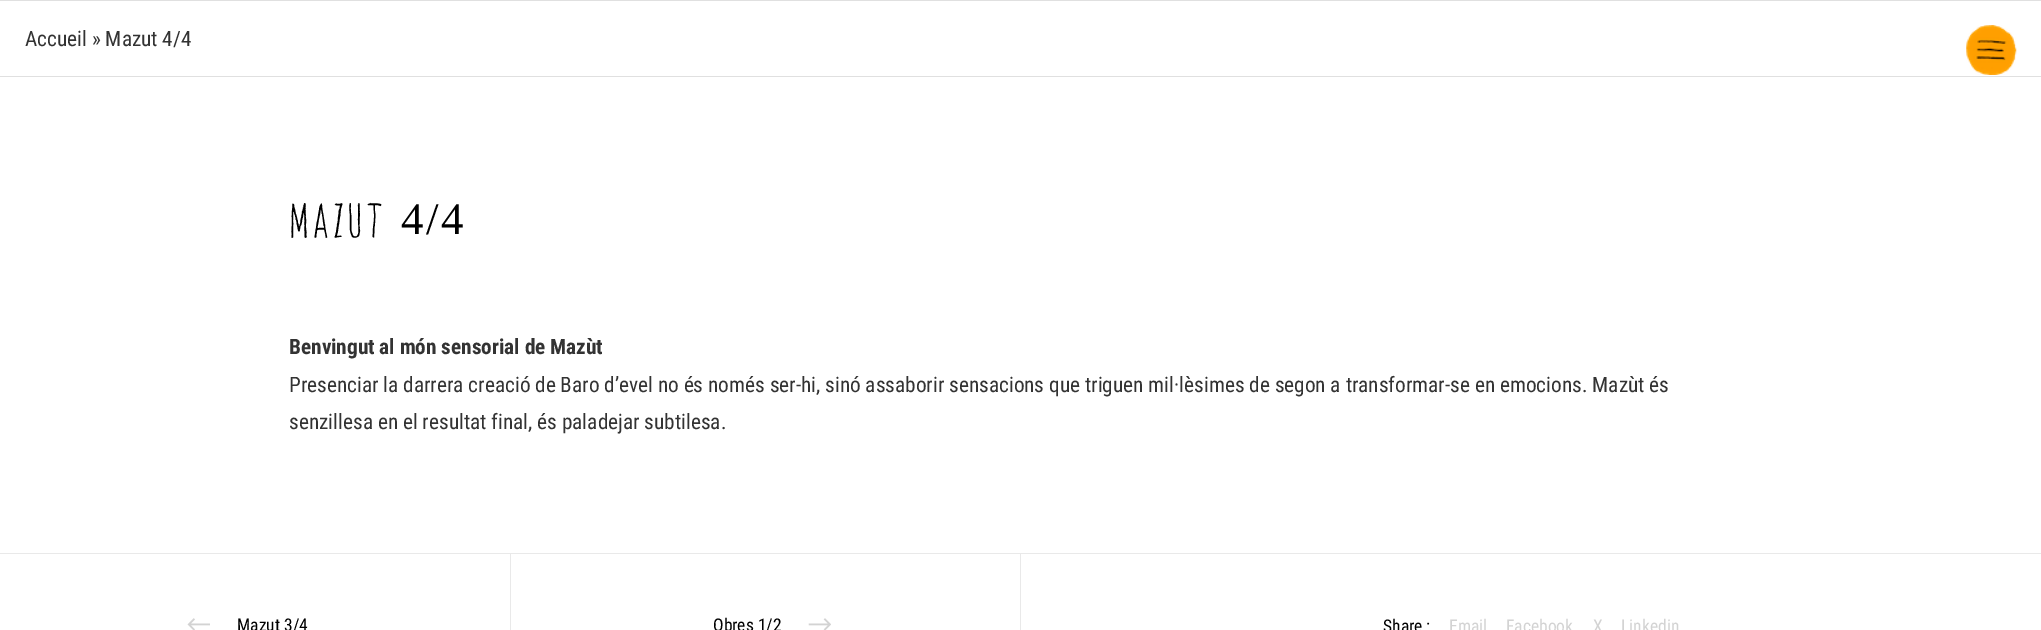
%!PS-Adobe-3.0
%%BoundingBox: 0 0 2041 630
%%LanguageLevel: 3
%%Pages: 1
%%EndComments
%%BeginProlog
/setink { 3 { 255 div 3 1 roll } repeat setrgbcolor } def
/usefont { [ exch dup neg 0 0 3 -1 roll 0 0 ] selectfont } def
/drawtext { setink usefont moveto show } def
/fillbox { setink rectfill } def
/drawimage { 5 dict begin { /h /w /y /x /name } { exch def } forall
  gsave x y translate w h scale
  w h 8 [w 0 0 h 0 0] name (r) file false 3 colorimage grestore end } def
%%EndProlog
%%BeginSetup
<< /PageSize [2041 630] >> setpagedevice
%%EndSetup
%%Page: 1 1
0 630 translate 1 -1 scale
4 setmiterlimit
0 0 2041 630 255 255 255 fillbox
0 0 2041 1 224 224 224 fillbox
0 76 2041 1 224 224 224 fillbox
(Accueil » Mazut 4/4) 25 46 /RobotoCondensed-Regular 21.25 51 51 51 drawtext
(assets/img1.rgb) 1966 25 51 50 drawimage
/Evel-Regular 45 usefont
0 0 0 setink
289 234 moveto 2.5 0 (MAZUT) ashow
/LiberationSerif-Regular 45 usefont
401 234 moveto 2.5 0 (4/4) ashow
(Benvingut al món sensorial de Mazùt) 289 354 /RobotoCondensed-Bold 21.25 51 51 51 drawtext
(Presenciar la darrera creació de Baro d’evel no és només ser-hi, sinó assaborir sensacions que triguen mil·lèsimes de segon a transformar-se en emocions. Mazùt és) 289 392 /RobotoCondensed-Regular 21.25 51 51 51 drawtext
(senzillesa en el resultat final, és paladejar subtilesa.) 289 429 /RobotoCondensed-Regular 21.25 51 51 51 drawtext
0 553 2041 1 233 233 233 fillbox
1020 554 1 76 233 233 233 fillbox
(assets/img2.rgb) 187 618 23 12 drawimage
(Mazut 3/4) 237 631 /RobotoCondensed-Regular 17.5 0 0 0 drawtext
510 554 1 76 233 233 233 fillbox
(Obres 1/2) 713 631 /RobotoCondensed-Regular 17.5 0 0 0 drawtext
(assets/img3.rgb) 808 618 23 12 drawimage
(Share :) 1383 632 /RobotoCondensed-Regular 17.5 0 0 0 drawtext
(Email) 1449 632 /RobotoCondensed-Regular 17.5 211 211 211 drawtext
(Facebook) 1506 632 /RobotoCondensed-Regular 17.5 211 211 211 drawtext
(X) 1593 632 /RobotoCondensed-Regular 17.5 211 211 211 drawtext
(Linkedin) 1621 632 /RobotoCondensed-Regular 17.5 211 211 211 drawtext
showpage
%%EOF
